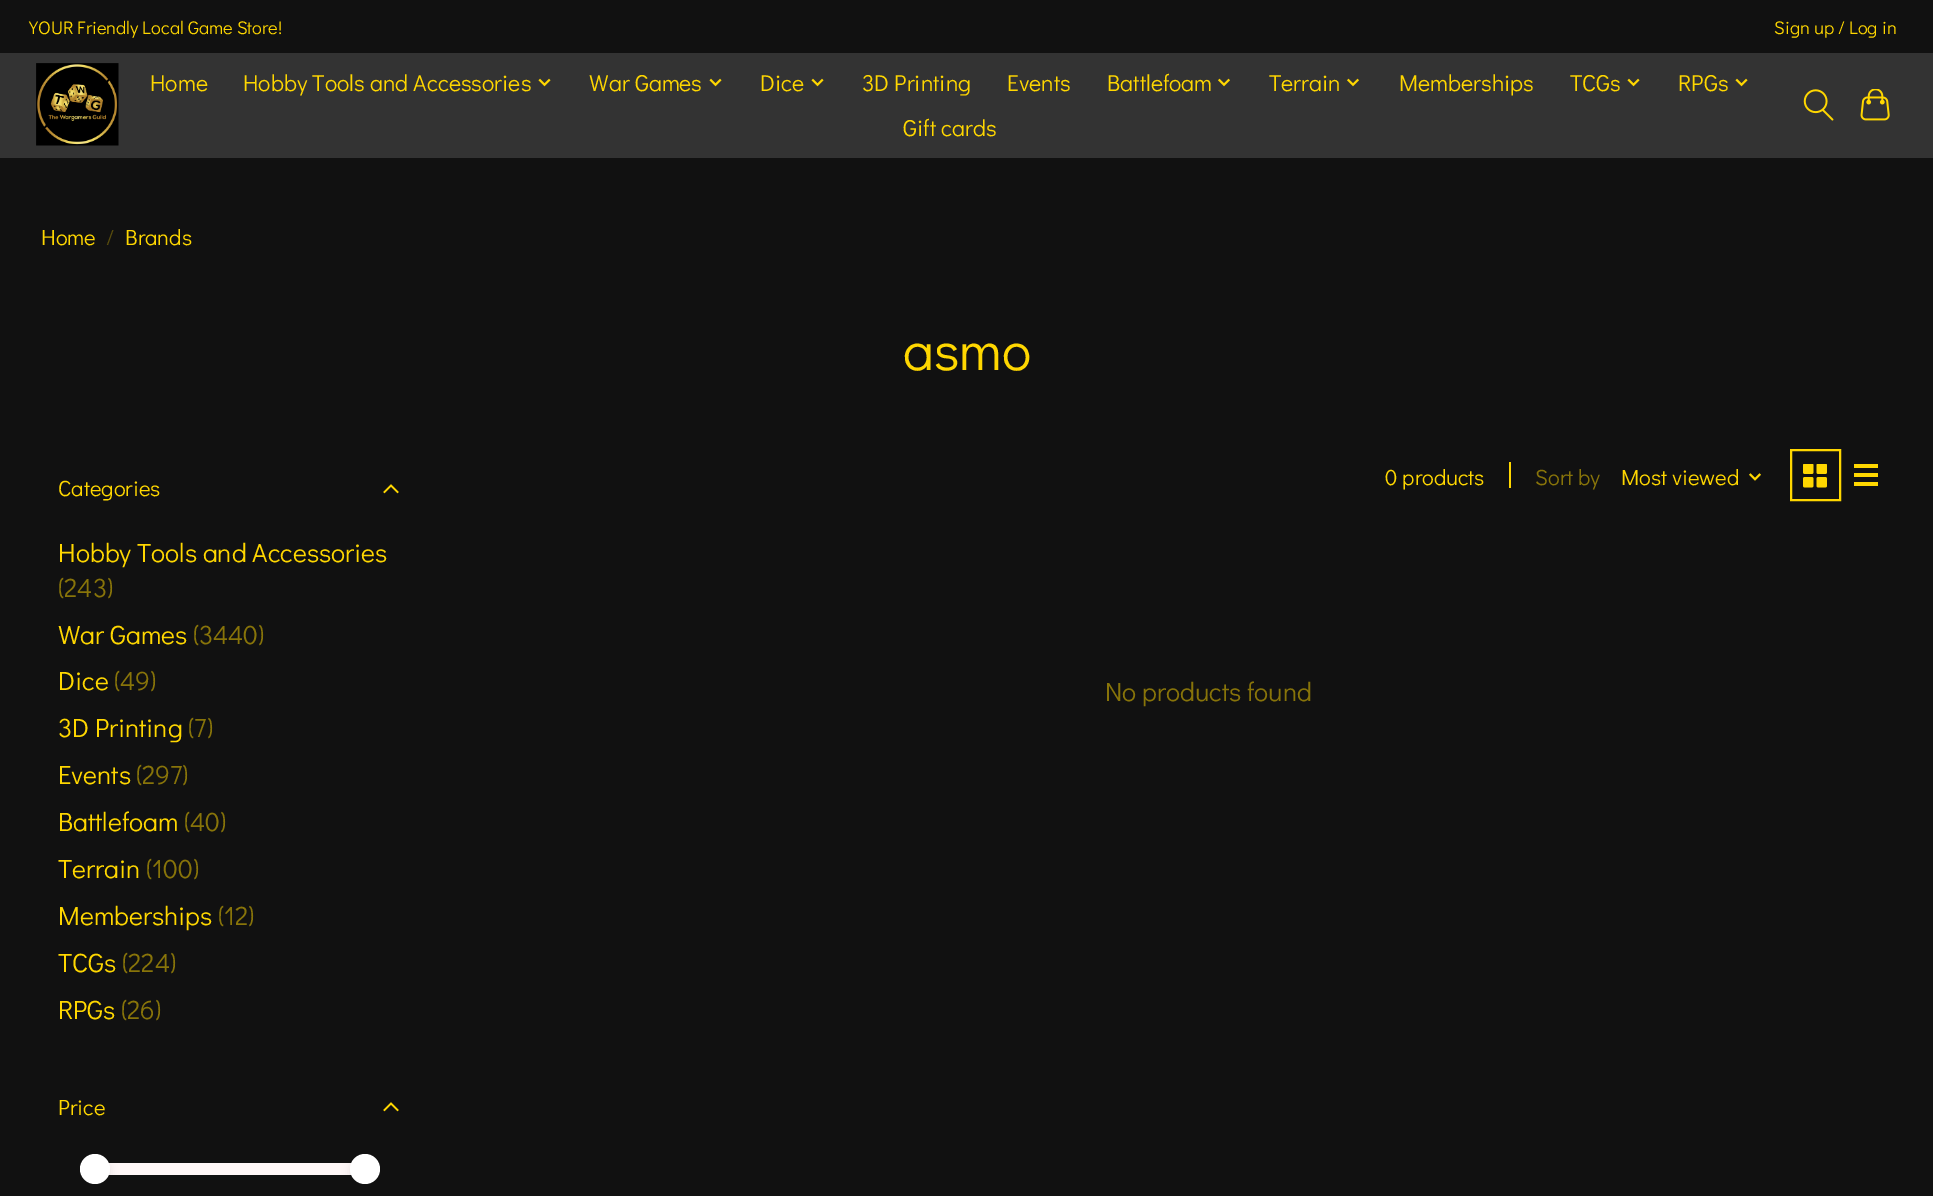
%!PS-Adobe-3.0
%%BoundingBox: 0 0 1933 1196
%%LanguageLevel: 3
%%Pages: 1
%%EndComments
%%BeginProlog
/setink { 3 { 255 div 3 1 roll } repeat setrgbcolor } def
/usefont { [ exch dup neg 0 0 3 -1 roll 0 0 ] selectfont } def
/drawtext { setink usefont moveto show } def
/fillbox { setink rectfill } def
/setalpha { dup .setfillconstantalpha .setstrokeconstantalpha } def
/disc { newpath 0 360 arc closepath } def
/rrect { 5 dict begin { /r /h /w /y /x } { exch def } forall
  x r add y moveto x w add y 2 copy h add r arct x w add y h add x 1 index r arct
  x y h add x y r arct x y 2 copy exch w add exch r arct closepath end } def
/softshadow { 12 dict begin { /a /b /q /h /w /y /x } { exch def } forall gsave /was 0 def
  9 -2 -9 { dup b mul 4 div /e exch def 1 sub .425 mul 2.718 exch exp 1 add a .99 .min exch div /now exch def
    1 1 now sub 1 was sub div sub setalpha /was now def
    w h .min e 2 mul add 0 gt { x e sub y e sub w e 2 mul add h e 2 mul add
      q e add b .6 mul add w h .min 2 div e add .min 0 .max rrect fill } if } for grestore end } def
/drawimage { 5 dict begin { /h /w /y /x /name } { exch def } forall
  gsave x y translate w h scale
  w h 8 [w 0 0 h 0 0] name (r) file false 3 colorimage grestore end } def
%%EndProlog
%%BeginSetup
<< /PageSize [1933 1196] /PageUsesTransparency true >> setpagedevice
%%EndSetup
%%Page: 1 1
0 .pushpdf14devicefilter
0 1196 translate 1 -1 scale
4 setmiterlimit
0 0 1933 1196 17 17 17 fillbox
0 53 1933 105 51 51 51 fillbox
(YOUR Friendly Local Game Store!) 29 34 /DidactGothic-Regular 18.3 255 215 0 drawtext
(Sign up / Log in) 1774 34 /DidactGothic-Regular 18.3 255 215 0 drawtext
(assets/img1.rgb) 36 63 83 83 drawimage
(Home) 150 91 /DidactGothic-Regular 23.1 255 215 0 drawtext
(Hobby Tools and Accessories) 243 91 /DidactGothic-Regular 23.1 255 215 0 drawtext
(assets/img2.rgb) 538 78 13 9 drawimage
(War Games) 589 91 /DidactGothic-Regular 23.1 255 215 0 drawtext
(assets/img2.rgb) 709 78 13 9 drawimage
(Dice) 760 91 /DidactGothic-Regular 23.1 255 215 0 drawtext
(assets/img2.rgb) 811 78 13 9 drawimage
(3D Printing) 862 91 /DidactGothic-Regular 23.1 255 215 0 drawtext
(Events) 1007 91 /DidactGothic-Regular 23.1 255 215 0 drawtext
(Battlefoam) 1107 91 /DidactGothic-Regular 23.1 255 215 0 drawtext
(assets/img3.rgb) 1218 78 12 9 drawimage
(Terrain) 1269 91 /DidactGothic-Regular 23.1 255 215 0 drawtext
(assets/img3.rgb) 1347 78 12 9 drawimage
(Memberships) 1399 91 /DidactGothic-Regular 23.1 255 215 0 drawtext
(TCGs) 1570 91 /DidactGothic-Regular 23.1 255 215 0 drawtext
(assets/img2.rgb) 1627 78 13 9 drawimage
(RPGs) 1678 91 /DidactGothic-Regular 23.1 255 215 0 drawtext
(assets/img2.rgb) 1735 78 13 9 drawimage
(Gift cards) 903 136 /DidactGothic-Regular 23.1 255 215 0 drawtext
(assets/img4.rgb) 1803 89 31 32 drawimage
(assets/img5.rgb) 1860 89 30 32 drawimage
(Home) 41 245 /DidactGothic-Regular 22 255 215 0 drawtext
(/) 106 245 /DidactGothic-Regular 22 88 76 12 drawtext
(Brands) 125 245 /DidactGothic-Regular 22 255 215 0 drawtext
(asmo) 903 370 /DidactGothic-Regular 55 255 215 0 drawtext
(Categories) 58 496 /DidactGothic-Regular 22 255 215 0 drawtext
1.6 setlinewidth
2 setlinecap
384.5 492 moveto 391 485.5 lineto 397.5 492 moveto 391 485.5 lineto stroke
(Hobby Tools and Accessories) 58 562 /DidactGothic-Regular 26.4 255 215 0 drawtext
(\(243\)) 58 597 /DidactGothic-Regular 26.4 136 116 9 drawtext
(War Games) 58 644 /DidactGothic-Regular 26.4 255 215 0 drawtext
(\(3440\)) 193 644 /DidactGothic-Regular 26.4 136 116 9 drawtext
(Dice) 58 690 /DidactGothic-Regular 26.4 255 215 0 drawtext
(\(49\)) 114 690 /DidactGothic-Regular 26.4 136 116 9 drawtext
(3D Printing) 58 737 /DidactGothic-Regular 26.4 255 215 0 drawtext
(\(7\)) 188 737 /DidactGothic-Regular 26.4 136 116 9 drawtext
(Events) 58 784 /DidactGothic-Regular 26.4 255 215 0 drawtext
(\(297\)) 136 784 /DidactGothic-Regular 26.4 136 116 9 drawtext
(Battlefoam) 58 831 /DidactGothic-Regular 26.4 255 215 0 drawtext
(\(40\)) 184 831 /DidactGothic-Regular 26.4 136 116 9 drawtext
(Terrain) 58 878 /DidactGothic-Regular 26.4 255 215 0 drawtext
(\(100\)) 146 878 /DidactGothic-Regular 26.4 136 116 9 drawtext
(Memberships) 58 925 /DidactGothic-Regular 26.4 255 215 0 drawtext
(\(12\)) 218 925 /DidactGothic-Regular 26.4 136 116 9 drawtext
(TCGs) 58 972 /DidactGothic-Regular 26.4 255 215 0 drawtext
(\(224\)) 122 972 /DidactGothic-Regular 26.4 136 116 9 drawtext
(RPGs) 58 1019 /DidactGothic-Regular 26.4 255 215 0 drawtext
(\(26\)) 121 1019 /DidactGothic-Regular 26.4 136 116 9 drawtext
(Price) 58 1115 /DidactGothic-Regular 22 255 215 0 drawtext
384.5 1110 moveto 391 1103.5 lineto 397.5 1110 moveto 391 1103.5 lineto stroke
255 247 247 setink
86 1163 moveto 365 1163 lineto 365 1175 lineto 86 1175 lineto 82.5 1175 80 1172.5 80 1169 curveto 80 1165.5 82.5 1163 86 1163 curveto closepath fill
0 0 0 setink
80 1158 30 30 15 4 0.08 softshadow
255 255 255 setink
95 1169 15 disc fill
0 0 0 setink
350 1158 30 30 15 4 0.08 softshadow
255 255 255 setink
365 1169 15 disc fill
(0 products) 1385 485 /DidactGothic-Regular 22 255 215 0 drawtext
1509 462 2 26 255 215 0 fillbox
(Sort by) 1535 485 /DidactGothic-Regular 22 136 116 9 drawtext
(Most viewed) 1621 485 /DidactGothic-Regular 22 255 215 0 drawtext
(assets/img6.rgb) 1749 473 12 8 drawimage
2 setlinewidth
0 setlinecap
1791 450 49 50 rectstroke
(assets/img7.rgb) 1803 464 24 24 drawimage
1854 464 24 4 255 215 0 fillbox
1854 473 24 4 255 215 0 fillbox
1854 482 24 4 255 215 0 fillbox
(No products found) 1105 701 /DidactGothic-Regular 26.4 136 116 9 drawtext
.poppdf14devicefilter showpage
%%EOF
